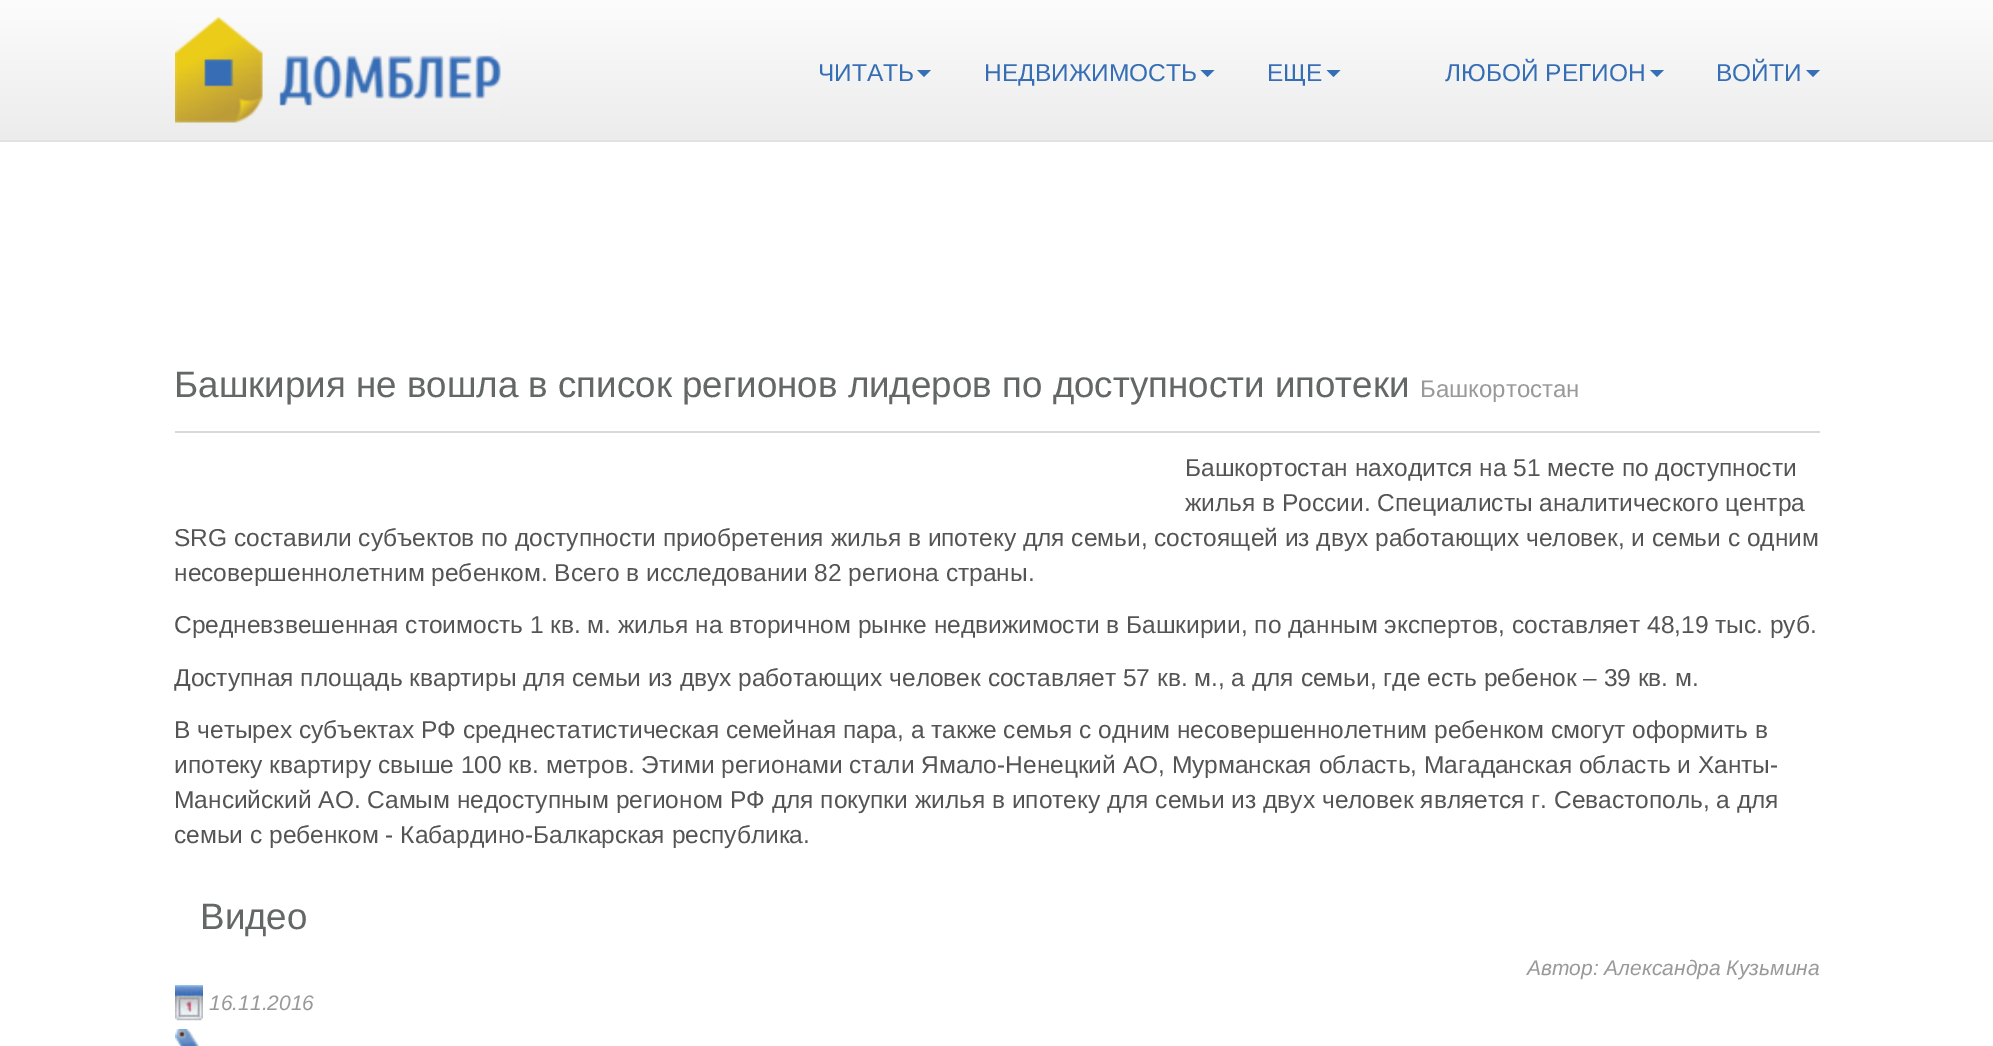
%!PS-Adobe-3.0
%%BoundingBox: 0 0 1993 1046
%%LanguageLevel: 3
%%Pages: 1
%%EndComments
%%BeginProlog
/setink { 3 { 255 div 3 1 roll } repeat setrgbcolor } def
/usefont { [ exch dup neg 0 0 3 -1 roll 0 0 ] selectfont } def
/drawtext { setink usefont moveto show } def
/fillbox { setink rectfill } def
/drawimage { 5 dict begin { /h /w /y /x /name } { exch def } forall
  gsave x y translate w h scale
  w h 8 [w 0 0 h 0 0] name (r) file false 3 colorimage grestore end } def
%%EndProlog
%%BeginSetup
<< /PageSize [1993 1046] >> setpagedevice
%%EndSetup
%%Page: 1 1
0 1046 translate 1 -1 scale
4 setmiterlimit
0 0 1993 1046 255 255 255 fillbox
gsave 0 0 moveto 1993 0 lineto 1993 140 lineto 0 140 lineto closepath clip newpath
<< /ShadingType 2 /ColorSpace /DeviceRGB /Coords [997 0 997 140] /Extend [true true] /Function << /FunctionType 2 /Domain [0 1] /C0 [0.988 0.988 0.988] /C1 [0.925 0.925 0.925] /N 1 >> >> shfill grestore
0 140 1993 2 226 226 226 fillbox
(assets/img1.rgb) 175 17 326 106 drawimage
(ЧИТАТЬ) 818 81 /LiberationSans-Regular 24.5 54 110 182 drawtext
917 70 moveto 931 70 lineto 924 77 lineto closepath fill
(НЕДВИЖИМОСТЬ) 984 81 /LiberationSans-Regular 24.5 54 110 182 drawtext
1200.5 70 moveto 1214.5 70 lineto 1207.5 77 lineto closepath fill
(ЕЩЕ) 1267 81 /LiberationSans-Regular 24.5 54 110 182 drawtext
1326.5 70 moveto 1340.5 70 lineto 1333.5 77 lineto closepath fill
(ЛЮБОЙ РЕГИОН) 1445 81 /LiberationSans-Regular 24.5 54 110 182 drawtext
1650 70 moveto 1664 70 lineto 1657 77 lineto closepath fill
(ВОЙТИ) 1716 81 /LiberationSans-Regular 24.5 54 110 182 drawtext
1806 70 moveto 1820 70 lineto 1813 77 lineto closepath fill
175 431 1645 2 217 217 217 fillbox
(Башкирия не вошла в список регионов лидеров по доступности ипотеки) 174 397 /LiberationSans-Regular 36.75 99 103 102 drawtext
(Башкортостан) 1420 397 /LiberationSans-Regular 24 153 153 153 drawtext
(Башкортостан находится на 51 месте по доступности) 1185 476 /LiberationSans-Regular 24.5 84 84 84 drawtext
(жилья в России. Специалисты аналитического центра) 1185 511 /LiberationSans-Regular 24.5 84 84 84 drawtext
(SRG составили субъектов по доступности приобретения жилья в ипотеку для семьи, состоящей из двух работающих человек, и семьи с одним) 174 546 /LiberationSans-Regular 24.5 84 84 84 drawtext
(несовершеннолетним ребенком. Всего в исследовании 82 региона страны.) 174 581 /LiberationSans-Regular 24.5 84 84 84 drawtext
(Средневзвешенная стоимость 1 кв. м. жилья на вторичном рынке недвижимости в Башкирии, по данным экспертов, составляет 48,19 тыс. руб.) 174 633 /LiberationSans-Regular 24.5 84 84 84 drawtext
(Доступная площадь квартиры для семьи из двух работающих человек составляет 57 кв. м., а для семьи, где есть ребенок – 39 кв. м.) 174 686 /LiberationSans-Regular 24.5 84 84 84 drawtext
(В четырех субъектах РФ среднестатистическая семейная пара, а также семья с одним несовершеннолетним ребенком смогут оформить в) 174 738 /LiberationSans-Regular 24.5 84 84 84 drawtext
(ипотеку квартиру свыше 100 кв. метров. Этими регионами стали Ямало-Ненецкий АО, Мурманская область, Магаданская область и Ханты-) 174 773 /LiberationSans-Regular 24.5 84 84 84 drawtext
(Мансийский АО. Самым недоступным регионом РФ для покупки жилья в ипотеку для семьи из двух человек является г. Севастополь, а для) 174 808 /LiberationSans-Regular 24.5 84 84 84 drawtext
(семьи с ребенком - Кабардино-Балкарская республика.) 174 843 /LiberationSans-Regular 24.5 84 84 84 drawtext
(Видео) 200 929 /LiberationSans-Regular 36.75 99 103 102 drawtext
(Автор: Александра Кузьмина) 1527 975 /LiberationSans-Italic 21 153 153 153 drawtext
(assets/img2.rgb) 175 985 28 36 drawimage
(16.11.2016) 209 1010 /LiberationSans-Italic 21 153 153 153 drawtext
(assets/img3.rgb) 175 1029 25 17 drawimage
showpage
%%EOF
